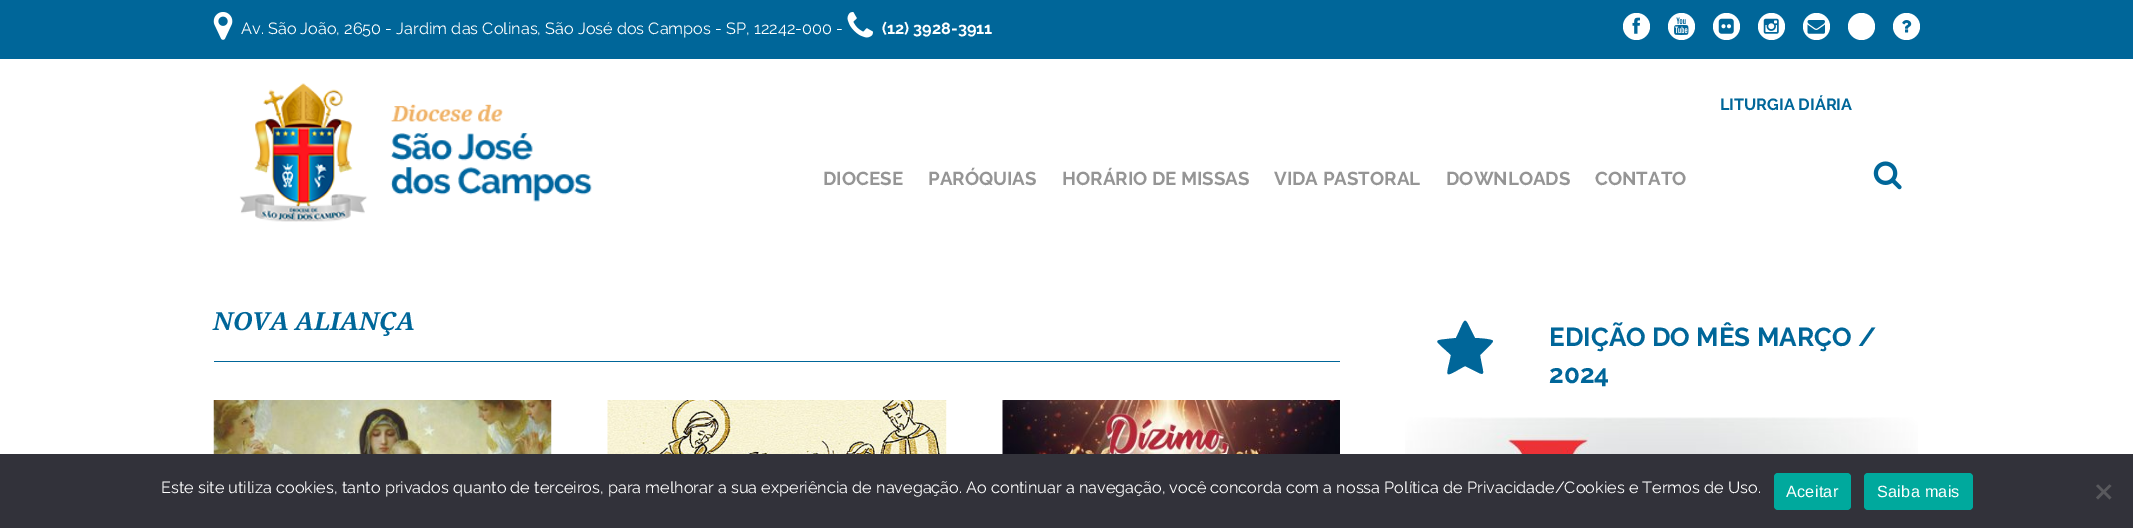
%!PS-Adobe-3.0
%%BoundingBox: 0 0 2133 528
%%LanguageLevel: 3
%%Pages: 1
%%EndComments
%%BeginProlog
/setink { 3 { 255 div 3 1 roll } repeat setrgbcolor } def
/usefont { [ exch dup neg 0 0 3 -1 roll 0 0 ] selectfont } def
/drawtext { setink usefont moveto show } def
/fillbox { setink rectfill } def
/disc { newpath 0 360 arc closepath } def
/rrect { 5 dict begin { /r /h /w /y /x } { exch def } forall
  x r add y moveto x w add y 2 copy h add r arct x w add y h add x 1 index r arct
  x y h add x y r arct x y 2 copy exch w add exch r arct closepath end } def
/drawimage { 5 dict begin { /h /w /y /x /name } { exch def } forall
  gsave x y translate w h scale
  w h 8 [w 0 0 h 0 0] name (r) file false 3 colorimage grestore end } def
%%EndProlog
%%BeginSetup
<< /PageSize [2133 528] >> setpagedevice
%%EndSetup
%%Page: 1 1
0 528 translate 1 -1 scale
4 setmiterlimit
0 0 2133 528 255 255 255 fillbox
0 0 2133 59 0 102 153 fillbox
(assets/img1.rgb) 213 12 20 28 drawimage
(Av. São João, 2650 - Jardim das Colinas, São José dos Campos - SP, 12242-000 -) 241 34 /Raleway-Regular 16.25 255 255 255 drawtext
(assets/img2.rgb) 847 12 26 26 drawimage
(\(12\) 3928-3911) 882 34 /Raleway-Bold 16.25 255 255 255 drawtext
1636.5 26.5 13.5 disc fill
(assets/img3.rgb) 1632 17 8 17 drawimage
1681.5 26.5 13.5 disc fill
(assets/img4.rgb) 1674 17 15 18 drawimage
1726.5 26.5 13.5 disc fill
(assets/img5.rgb) 1718 18 16 16 drawimage
1771.5 26.5 13.5 disc fill
(assets/img6.rgb) 1763 18 16 16 drawimage
1816.5 26.5 13.5 disc fill
(assets/img7.rgb) 1807 20 18 14 drawimage
1861.5 26.5 13.5 disc fill
1906.5 26.5 13.5 disc fill
(assets/img8.rgb) 1902 20 10 13 drawimage
(assets/img9.rgb) 239 83 353 139 drawimage
(LITURGIA DIÁRIA) 1720 110 /Raleway-Bold 16.25 0 102 153 drawtext
(DIOCESE) 823 185 /Raleway-Bold 18.75 149 149 149 drawtext
(PARÓQUIAS) 928 185 /Raleway-Bold 18.75 149 149 149 drawtext
(HORÁRIO DE MISSAS) 1062 185 /Raleway-Bold 18.75 149 149 149 drawtext
(VIDA PASTORAL) 1274 185 /Raleway-Bold 18.75 149 149 149 drawtext
(DOWNLOADS) 1446 185 /Raleway-Bold 18.75 149 149 149 drawtext
(CONTATO) 1595 185 /Raleway-Bold 18.75 149 149 149 drawtext
(assets/img10.rgb) 1873 161 29 29 drawimage
214 361 1126 1 0 102 153 fillbox
(NOVA ALIANÇA) 213 330 /DroidSerif-BoldItalic 25 0 102 153 drawtext
(assets/img11.rgb) 213 400 339 54 drawimage
(assets/img12.rgb) 607 400 340 54 drawimage
(assets/img13.rgb) 1002 400 338 54 drawimage
1493 341 moveto 1493 343 1482 353 1480 355 curveto 1484 379 1488 377 1465 366 curveto 1443 378 1446 379 1451 355 curveto 1433 338 1431 341 1456 338 curveto 1467 315 1463 315 1475 338 curveto 1477 338 1493 339 1493 341 curveto closepath fill
(EDIÇÃO DO MÊS MARÇO /) 1549 346 /Raleway-Bold 26 0 102 153 drawtext
(2024) 1549 383 /Raleway-Bold 26 0 102 153 drawtext
(assets/img14.rgb) 1405 417 513 37 drawimage
0 454 2133 74 50 50 58 fillbox
(Este site utiliza cookies, tanto privados quanto de terceiros, para melhorar a sua experiência de navegação. Ao continuar a navegação, você concorda com a nossa Política de Privacidade/Cookies e Termos de Uso.) 161 493 /Raleway-Regular 16.25 255 255 255 drawtext
0 169 157 setink
1774 473 77 37 4 rrect fill
/LiberationSans-Regular 16.25 usefont
255 255 255 setink
1786 497 moveto 0.25 0 (Aceitar) ashow
0 169 157 setink
1864 473 109 37 4 rrect fill
255 255 255 setink
1877 497 moveto 0.25 0 (Saiba mais) ashow
89 89 93 setink
2109.5 484.5 moveto 2111.5 486 lineto 2098 499.5 lineto 2096 497.5 lineto closepath fill
2096 486 moveto 2098 484.5 lineto 2111.5 497.5 lineto 2109.5 499.5 lineto closepath fill
showpage
%%EOF
